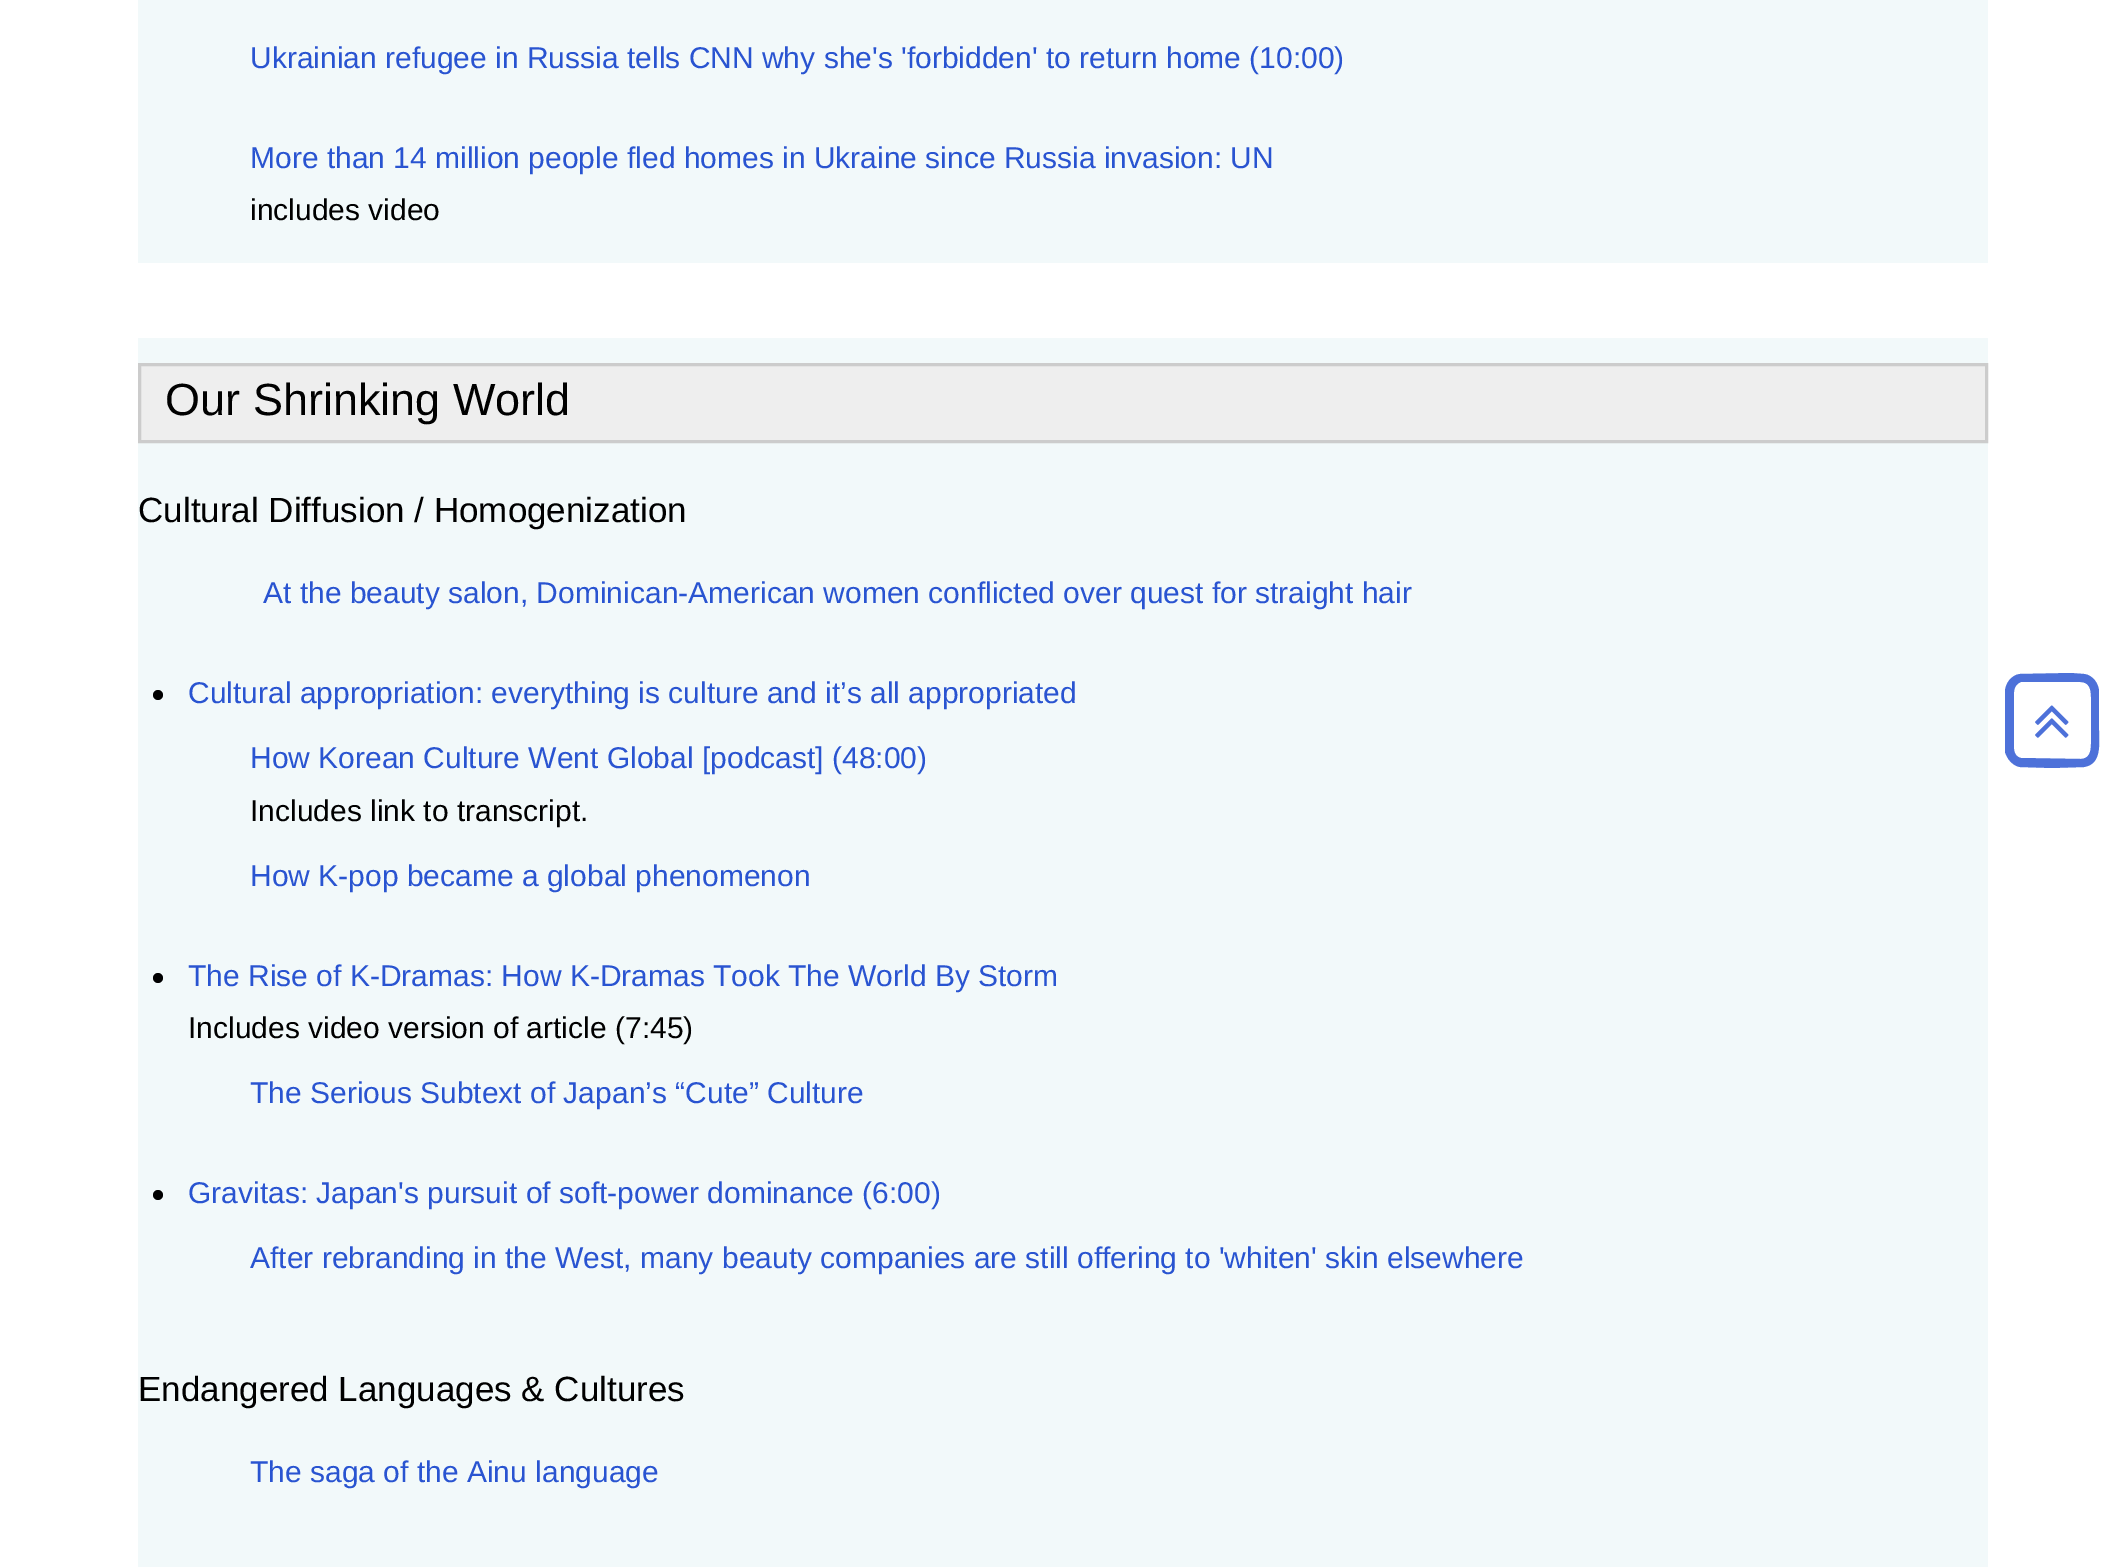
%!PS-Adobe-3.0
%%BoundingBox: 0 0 2124 1567
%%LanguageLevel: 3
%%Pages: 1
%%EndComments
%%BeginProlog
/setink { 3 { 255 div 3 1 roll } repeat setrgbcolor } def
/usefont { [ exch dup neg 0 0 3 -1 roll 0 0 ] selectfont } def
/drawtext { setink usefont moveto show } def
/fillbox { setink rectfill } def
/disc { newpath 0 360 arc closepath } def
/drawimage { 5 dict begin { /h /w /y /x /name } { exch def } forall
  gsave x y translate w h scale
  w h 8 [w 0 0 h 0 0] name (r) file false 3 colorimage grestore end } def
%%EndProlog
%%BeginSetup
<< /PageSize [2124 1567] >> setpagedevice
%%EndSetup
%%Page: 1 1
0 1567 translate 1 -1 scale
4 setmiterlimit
0 0 2124 1567 255 255 255 fillbox
138 0 1850 263 242 249 250 fillbox
(Ukrainian refugee in Russia tells CNN why she's 'forbidden' to return home \(10:00\)) 250 68 /LiberationSans-Regular 30 41 84 209 drawtext
(More than 14 million people fled homes in Ukraine since Russia invasion: UN) 250 168 /LiberationSans-Regular 30 41 84 209 drawtext
(includes video) 250 220 /LiberationSans-Regular 30 0 0 0 drawtext
138 338 1850 1229 242 249 250 fillbox
238 238 238 setink
139.5 364.5 moveto 1986.5 364.5 lineto 1986.5 441.5 lineto 139.5 441.5 lineto closepath gsave fill grestore
204 204 204 setink
3 setlinewidth
stroke
(Our Shrinking World) 165 415 /LiberationSans-Regular 45 0 0 0 drawtext
(Cultural Diffusion / Homogenization) 138 522 /LiberationSans-Regular 35 0 0 0 drawtext
(At the beauty salon, Dominican-American women conflicted over quest for straight hair) 263 603 /LiberationSans-Regular 30 41 84 209 drawtext
0 0 0 setink
158 695 5 disc fill
(Cultural appropriation: everything is culture and it’s all appropriated) 188 703 /LiberationSans-Regular 30 41 84 209 drawtext
(How Korean Culture Went Global [podcast] \(48:00\)) 250 768 /LiberationSans-Regular 30 41 84 209 drawtext
(Includes link to transcript.) 250 821 /LiberationSans-Regular 30 0 0 0 drawtext
(How K-pop became a global phenomenon) 250 886 /LiberationSans-Regular 30 41 84 209 drawtext
0 0 0 setink
158 978 5 disc fill
(The Rise of K-Dramas: How K-Dramas Took The World By Storm) 188 986 /LiberationSans-Regular 30 41 84 209 drawtext
(Includes video version of article \(7:45\)) 188 1038 /LiberationSans-Regular 30 0 0 0 drawtext
(The Serious Subtext of Japan’s “Cute” Culture) 250 1103 /LiberationSans-Regular 30 41 84 209 drawtext
0 0 0 setink
158 1195 5 disc fill
(Gravitas: Japan's pursuit of soft-power dominance \(6:00\)) 188 1203 /LiberationSans-Regular 30 41 84 209 drawtext
(After rebranding in the West, many beauty companies are still offering to 'whiten' skin elsewhere) 250 1268 /LiberationSans-Regular 30 41 84 209 drawtext
(Endangered Languages & Cultures) 138 1401 /LiberationSans-Regular 35 0 0 0 drawtext
(The saga of the Ainu language) 250 1482 /LiberationSans-Regular 30 41 84 209 drawtext
77 113 217 setink
2080 682 moveto 2021 682 lineto 2012 685 2014 695 2014 702 curveto 2014 739 lineto 2014 746 2012 756 2021 758 curveto 2080 759 lineto 2092 759 2091 747 2091 739 curveto 2091 702 lineto 2091 694 2092 682 2080 682 curveto closepath 2099 692 moveto 2099 730 lineto 2099 744 2102 764 2084 767 curveto 2052 768 lineto 2020 767 lineto 2013 766 2007 759 2005 752 curveto 2005 692 lineto 2005 684 2011 675 2020 674 curveto 2071 673 lineto 2084 674 lineto 2093 675 2099 684 2099 692 curveto closepath fill
(assets/img1.rgb) 2035 705 34 33 drawimage
showpage
%%EOF
